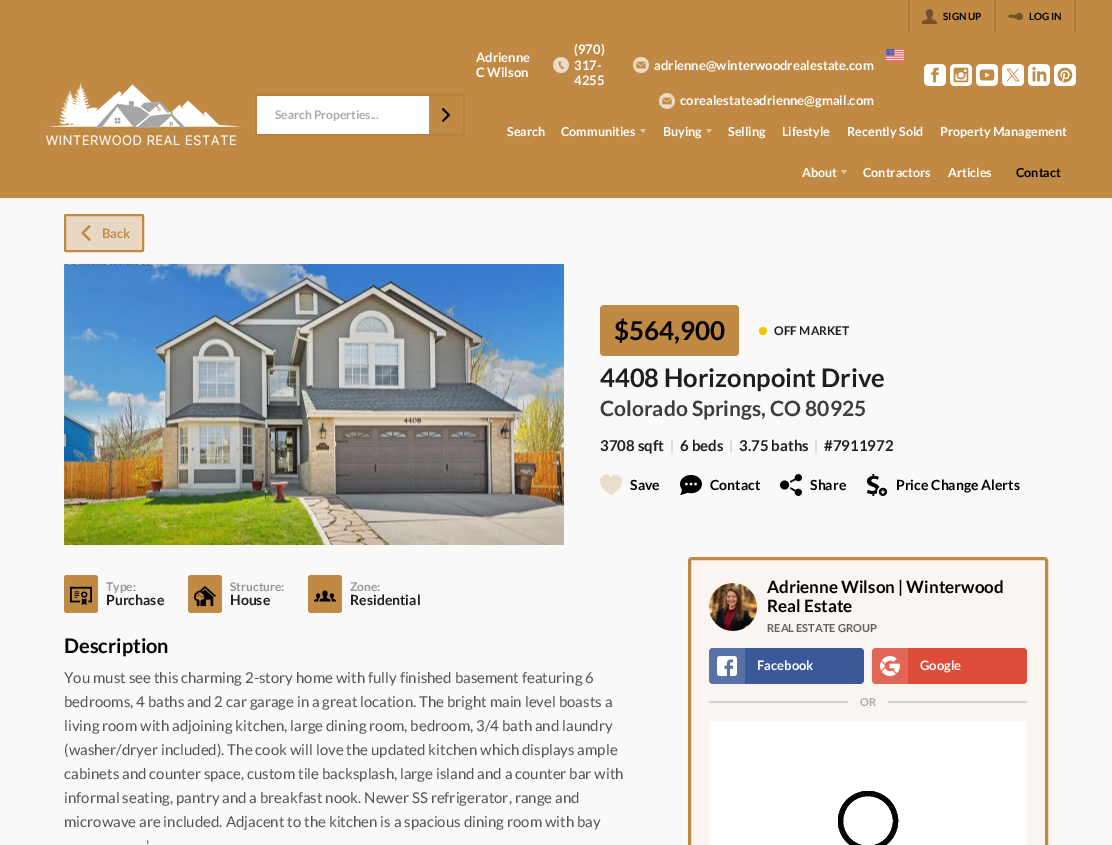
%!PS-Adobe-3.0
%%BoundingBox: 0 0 1112 845
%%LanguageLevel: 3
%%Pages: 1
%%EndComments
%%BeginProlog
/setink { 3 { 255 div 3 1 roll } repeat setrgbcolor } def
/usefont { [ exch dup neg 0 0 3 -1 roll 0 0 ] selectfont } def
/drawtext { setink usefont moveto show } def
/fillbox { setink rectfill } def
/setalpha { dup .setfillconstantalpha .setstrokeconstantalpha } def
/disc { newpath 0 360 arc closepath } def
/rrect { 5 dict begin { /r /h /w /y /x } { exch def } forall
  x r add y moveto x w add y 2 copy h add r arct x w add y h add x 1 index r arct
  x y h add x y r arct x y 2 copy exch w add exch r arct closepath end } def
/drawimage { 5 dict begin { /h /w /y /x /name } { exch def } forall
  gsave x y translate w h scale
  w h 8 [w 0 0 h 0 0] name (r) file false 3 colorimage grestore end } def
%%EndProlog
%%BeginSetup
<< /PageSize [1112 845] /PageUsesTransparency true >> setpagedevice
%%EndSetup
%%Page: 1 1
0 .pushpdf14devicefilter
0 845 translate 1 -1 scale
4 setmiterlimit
0 0 1112 845 249 249 249 fillbox
0 0 1112 198 192 138 68 fillbox
1074 0 2 32 173 124 61 fillbox
908 0 2 32 173 124 61 fillbox
(assets/img1.rgb) 922 9 15 15 drawimage
(SIGN UP) 943 20 /Lato-Bold 10 0 0 0 drawtext
994 0 2 32 173 124 61 fillbox
(assets/img2.rgb) 1008 12 15 9 drawimage
(LOG IN) 1029 20 /Lato-Bold 10 0 0 0 drawtext
(assets/img3.rgb) 45 83 196 63 drawimage
181 130 64 setink
2 setlinewidth
256 95 208 40 rectstroke
257 96 172 38 255 255 255 fillbox
(Search Properties...) 275 119 /Lato-Bold 12 170 170 170 drawtext
(assets/img4.rgb) 441 108 9 14 drawimage
(Adrienne) 476 62 /Lato-Bold 13 255 255 255 drawtext
(C Wilson) 476 77 /Lato-Bold 13 255 255 255 drawtext
(assets/img5.rgb) 553 57 16 16 drawimage
(\(970\)) 574 54 /Lato-Bold 13 255 255 255 drawtext
(317-) 574 70 /Lato-Bold 13 255 255 255 drawtext
(4255) 574 85 /Lato-Bold 13 255 255 255 drawtext
(assets/img6.rgb) 633 57 16 16 drawimage
(adrienne@winterwoodrealestate.com) 654 70 /Lato-Bold 13 255 255 255 drawtext
(assets/img6.rgb) 659 93 16 16 drawimage
(corealestateadrienne@gmail.com) 680 105 /Lato-Bold 13 255 255 255 drawtext
(assets/img7.rgb) 886 49 18 12 drawimage
(assets/img8.rgb) 924 64 22 22 drawimage
(assets/img9.rgb) 950 64 22 22 drawimage
(assets/img10.rgb) 976 64 22 22 drawimage
(assets/img11.rgb) 1002 64 22 22 drawimage
(assets/img12.rgb) 1028 64 22 22 drawimage
(assets/img13.rgb) 1054 64 22 22 drawimage
(Search) 507 136 /Lato-Bold 12.5 255 255 255 drawtext
(Communities) 561 136 /Lato-Bold 12.5 255 255 255 drawtext
224 197 162 setink
640 129 moveto 646 129 lineto 643 133 lineto closepath fill
(Buying) 663 136 /Lato-Bold 12.5 255 255 255 drawtext
224 197 162 setink
706 129 moveto 712 129 lineto 709 133 lineto closepath fill
(Selling) 728 136 /Lato-Bold 12.5 255 255 255 drawtext
(Lifestyle) 782 136 /Lato-Bold 12.5 255 255 255 drawtext
(Recently Sold) 847 136 /Lato-Bold 12.5 255 255 255 drawtext
(Property Management) 940 136 /Lato-Bold 12.5 255 255 255 drawtext
(About) 802 177 /Lato-Bold 12.5 255 255 255 drawtext
224 197 162 setink
841 170 moveto 847 170 lineto 844 174 lineto closepath fill
(Contractors) 863 177 /Lato-Bold 12.5 255 255 255 drawtext
(Articles) 948 177 /Lato-Bold 12.5 255 255 255 drawtext
(Contact) 1016 177 /Lato-Bold 12.5 0 0 0 drawtext
232 216 195 setink
65 215 78 36 1 rrect gsave fill grestore
192 138 68 setink
stroke
(assets/img14.rgb) 81 225 10 16 drawimage
(Back) 102 238 /Lato-Bold 13 192 138 68 drawtext
(assets/img15.rgb) 64 264 500 281 drawimage
600 305 139 51 4 rrect fill
($564,900) 614 340 /Lato-Bold 26 0 0 0 drawtext
243 198 5 setink
763 331 4 disc fill
(OFF MARKET) 774 335 /Lato-Bold 12 30 30 30 drawtext
(4408 Horizonpoint Drive) 600 387 /Lato-Bold 25.5 30 30 30 drawtext
(Colorado Springs, CO 80925) 600 416 /Lato-Bold 21.1 62 62 62 drawtext
(3708 sqft) 600 451 /Lato-Bold 15 30 30 30 drawtext
(|) 670 450 /Lato-Regular 13 194 194 194 drawtext
(6 beds) 680 451 /Lato-Bold 15 30 30 30 drawtext
(|) 729 450 /Lato-Regular 13 194 194 194 drawtext
(3.75 baths) 739 451 /Lato-Bold 15 30 30 30 drawtext
(|) 814 450 /Lato-Regular 13 194 194 194 drawtext
(#7911972) 824 451 /Lato-Bold 15 30 30 30 drawtext
235 221 204 setink
611 478 moveto 607.5 468.5 588 481 611 495 curveto 634 481 614.5 468.5 611 478 curveto closepath fill
(Save) 630 490 /Lato-Bold 14 0 0 0 drawtext
(assets/img16.rgb) 680 474 22 21 drawimage
(Contact) 710 490 /Lato-Bold 14 0 0 0 drawtext
(assets/img17.rgb) 780 474 22 22 drawimage
(Share) 810 490 /Lato-Bold 14 0 0 0 drawtext
(assets/img18.rgb) 867 474 21 22 drawimage
(Price Change Alerts) 896 490 /Lato-Bold 14 0 0 0 drawtext
192 138 68 setink
64 575 34 38 3 rrect fill
(assets/img19.rgb) 70 586 22 20 drawimage
(Type:) 106 591 /Lato-Bold 12 150 150 150 drawtext
(Purchase) 106 605 /Lato-Bold 14 30 30 30 drawtext
192 138 68 setink
188 575 34 38 3 rrect fill
(assets/img20.rgb) 194 586 22 21 drawimage
(Structure:) 230 591 /Lato-Bold 12 150 150 150 drawtext
(House) 230 605 /Lato-Bold 14 30 30 30 drawtext
192 138 68 setink
308 575 34 38 3 rrect fill
(assets/img21.rgb) 314 590 22 12 drawimage
(Zone:) 350 591 /Lato-Bold 12 150 150 150 drawtext
(Residential) 350 605 /Lato-Bold 14 30 30 30 drawtext
(Description) 64 653 /Lato-Bold 20 0 0 0 drawtext
(You must see this charming 2-story home with fully finished basement featuring 6) 64 683 /Lato-Regular 15 85 85 85 drawtext
(bedrooms, 4 baths and 2 car garage in a great location. The bright main level boasts a) 64 707 /Lato-Regular 15 85 85 85 drawtext
(living room with adjoining kitchen, large dining room, bedroom, 3/4 bath and laundry) 64 731 /Lato-Regular 15 85 85 85 drawtext
(\(washer/dryer included\). The cook will love the updated kitchen which displays ample) 64 755 /Lato-Regular 15 85 85 85 drawtext
(cabinets and counter space, custom tile backsplash, large island and a counter bar with) 64 779 /Lato-Regular 15 85 85 85 drawtext
(informal seating, pantry and a breakfast nook. Newer SS refrigerator, range and) 64 803 /Lato-Regular 15 85 85 85 drawtext
(microwave are included. Adjacent to the kitchen is a spacious dining room with bay) 64 827 /Lato-Regular 15 85 85 85 drawtext
(') 146 851 /Lato-Regular 15 85 85 85 drawtext
250 245 240 setink
689.5 558.5 357 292 2.5 rrect gsave fill grestore
192 138 68 setink
3 setlinewidth
stroke
(assets/img22.rgb) 709 583 48 48 drawimage
(Adrienne Wilson | Winterwood) 767 593 /Lato-Bold 17 0 0 0 drawtext
(Real Estate) 767 612 /Lato-Bold 17 0 0 0 drawtext
(REAL ESTATE GROUP) 767 632 /Lato-Bold 11 100 98 96 drawtext
59 89 152 setink
709 648 155 36 4 rrect fill
0.15 setalpha
255 255 255 setink
713 648 moveto 745 648 lineto 745 684 lineto 713 684 lineto 711 684 709 682 709 680 curveto 709 652 lineto 709 650 711 648 713 648 curveto closepath fill
1 setalpha
(assets/img23.rgb) 717 656 20 20 drawimage
(Facebook) 757 670 /Lato-Bold 13 255 255 255 drawtext
221 75 57 setink
872 648 155 36 4 rrect fill
0.15 setalpha
255 255 255 setink
876 648 moveto 908 648 lineto 908 684 lineto 876 684 lineto 874 684 872 682 872 680 curveto 872 652 lineto 872 650 874 648 876 648 curveto closepath fill
1 setalpha
(assets/img24.rgb) 880 656 20 20 drawimage
(Google) 920 670 /Lato-Bold 13 255 255 255 drawtext
709 701 318 2 213 208 204 fillbox
848 701 40 2 250 245 240 fillbox
(OR) 860 706 /Lato-Bold 11 170 170 170 drawtext
709 721 318 124 255 255 255 fillbox
0 0 0 setink
5 setlinewidth
868 821 27.5 disc stroke
868 821 27.5 disc stroke
.poppdf14devicefilter showpage
%%EOF
